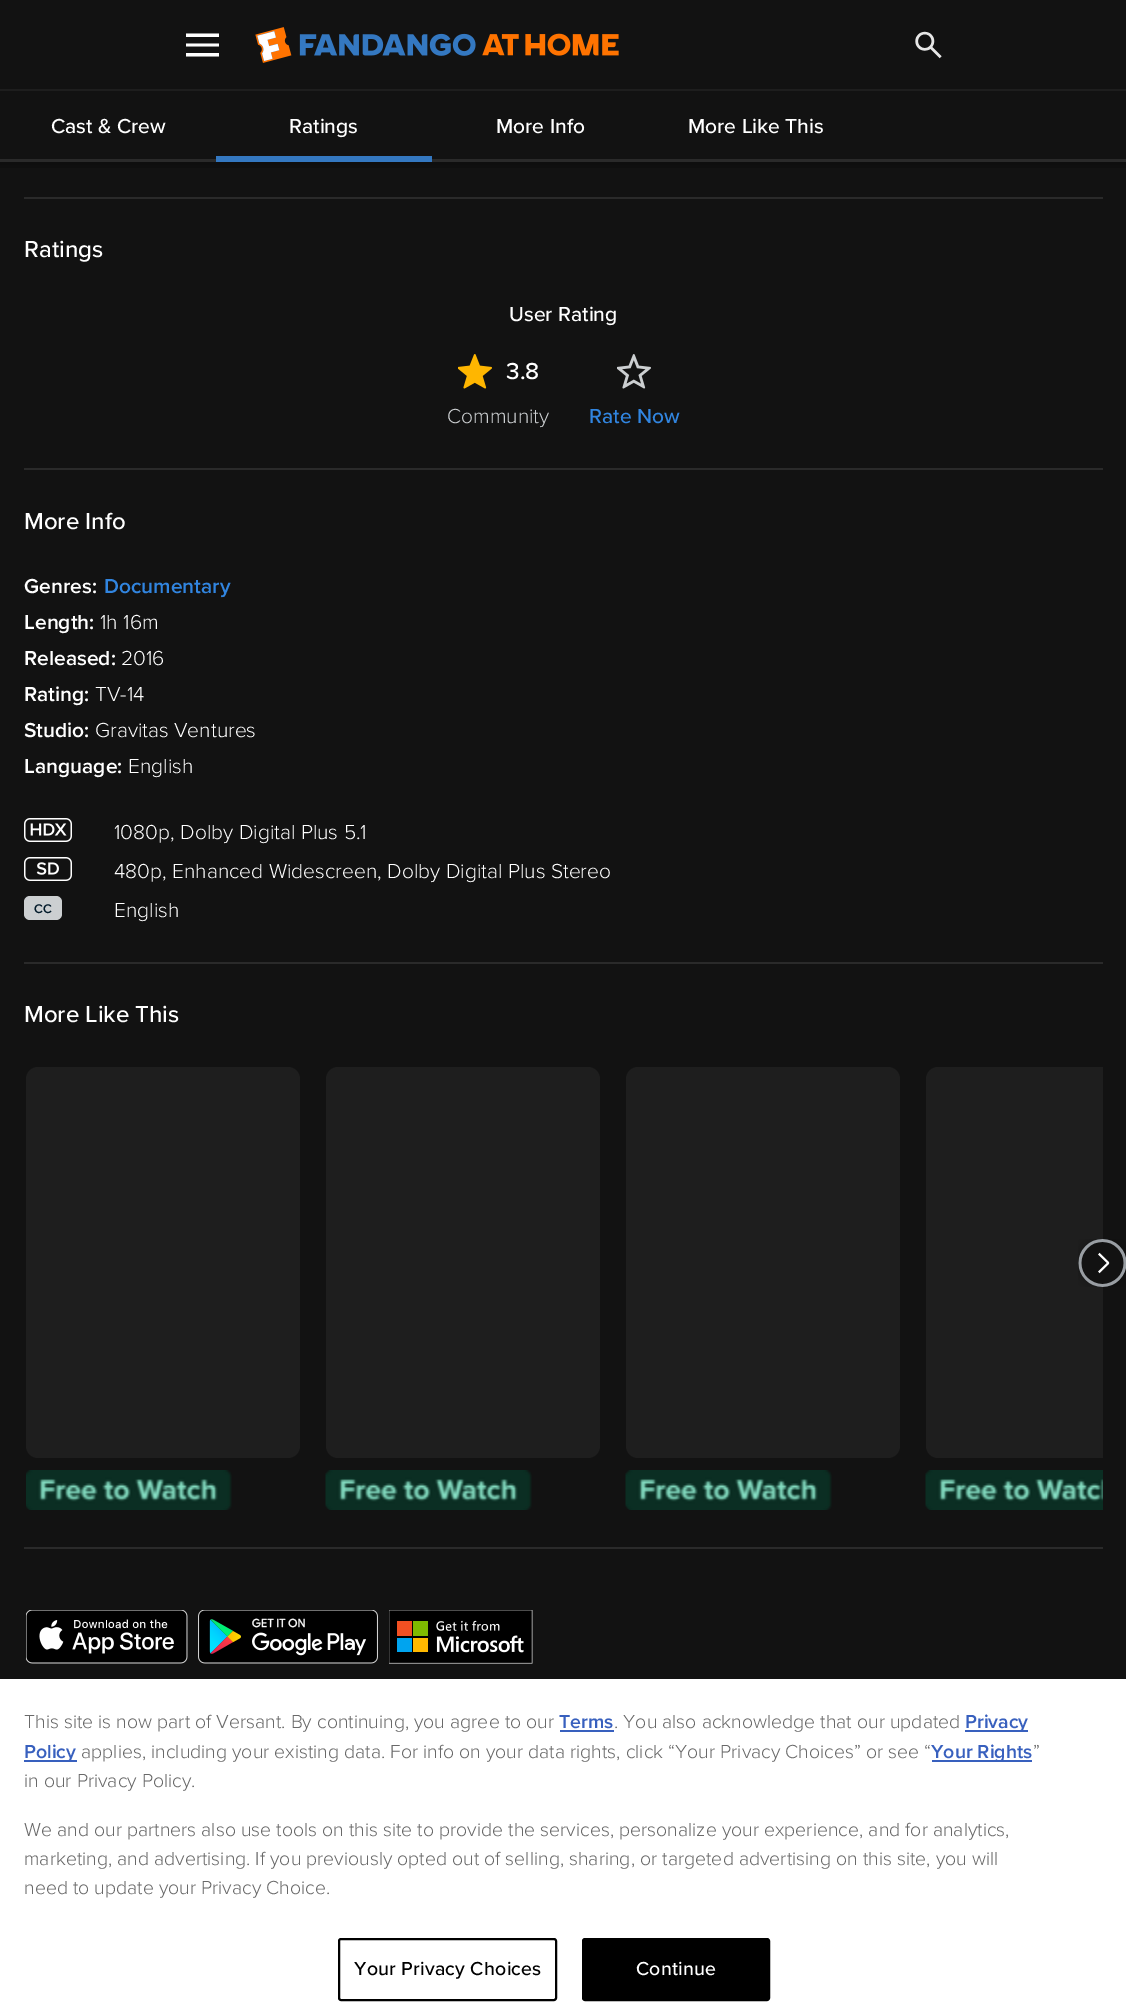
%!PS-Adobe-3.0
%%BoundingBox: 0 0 1126 2016
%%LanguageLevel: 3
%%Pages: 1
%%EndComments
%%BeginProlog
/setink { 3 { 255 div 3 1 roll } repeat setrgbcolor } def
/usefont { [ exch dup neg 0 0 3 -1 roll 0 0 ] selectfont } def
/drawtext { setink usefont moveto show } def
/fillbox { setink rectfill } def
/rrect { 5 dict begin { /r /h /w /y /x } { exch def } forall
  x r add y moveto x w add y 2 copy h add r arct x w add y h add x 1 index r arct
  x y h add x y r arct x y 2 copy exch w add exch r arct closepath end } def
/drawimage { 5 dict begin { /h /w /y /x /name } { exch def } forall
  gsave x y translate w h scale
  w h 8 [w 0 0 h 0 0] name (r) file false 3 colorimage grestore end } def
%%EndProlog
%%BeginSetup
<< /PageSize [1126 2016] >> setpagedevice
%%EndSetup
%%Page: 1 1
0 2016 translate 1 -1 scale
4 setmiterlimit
0 0 1126 2016 18 18 18 fillbox
0 89 1126 2 30 30 30 fillbox
255 255 255 setink
219 37 moveto 186 37 lineto 186 33.5 lineto 219 33.5 lineto closepath 219 46.5 moveto 186 46.5 lineto 186 43.5 lineto 219 43.5 lineto closepath 219 56.5 moveto 186 56.5 lineto 186 53 lineto 219 53 lineto closepath eofill
(assets/img1.rgb) 255 27 364 36 drawimage
(assets/img2.rgb) 915 31 27 28 drawimage
(Cast & Crew) 51 133 /ProximaNova-Medium 21 255 255 255 drawtext
0 159 1126 3 42 42 42 fillbox
216 156 216 6 52 120 193 fillbox
(Ratings) 289 133 /ProximaNova-Medium 21 255 255 255 drawtext
(More Info) 496 133 /ProximaNova-Medium 21 255 255 255 drawtext
(More Like This) 688 133 /ProximaNova-Medium 21 255 255 255 drawtext
gsave 0 162 moveto 1126 162 lineto 1126 168 lineto 0 168 lineto closepath clip newpath
<< /ShadingType 2 /ColorSpace /DeviceRGB /Coords [563 177 563 162] /Extend [true true] /Function << /FunctionType 2 /Domain [0 1] /C0 [0.071 0.071 0.071] /C1 [0.055 0.055 0.055] /N 1 >> >> shfill grestore
24 197 1079 2 42 42 42 fillbox
24 468 1079 2 42 42 42 fillbox
(Ratings) 24 257 /ProximaNova-Medium 24 255 255 255 drawtext
(User Rating) 509 321 /ProximaNova-Medium 21 255 255 255 drawtext
(assets/img3.rgb) 458 354 34 35 drawimage
(3.8) 506 379 /ProximaNova-Medium 24 255 255 255 drawtext
(Community) 447 423 /ProximaNova-Light 21 204 207 209 drawtext
(assets/img4.rgb) 617 354 34 35 drawimage
(Rate Now) 589 423 /ProximaNova-Medium 21 49 133 224 drawtext
24 962 1079 2 42 42 42 fillbox
(More Info) 24 529 /ProximaNova-Medium 24 255 255 255 drawtext
(Genres:) 24 593 /ProximaNova-SemiBold 21 255 255 255 drawtext
(Documentary) 104 593 /ProximaNova-SemiBold 21 49 133 224 drawtext
(Length:) 24 629 /ProximaNova-SemiBold 21 255 255 255 drawtext
(1h 16m) 100 629 /ProximaNova-Light 21 255 255 255 drawtext
(Released:) 24 665 /ProximaNova-SemiBold 21 255 255 255 drawtext
(2016) 121 665 /ProximaNova-Light 21 255 255 255 drawtext
(Rating:) 24 701 /ProximaNova-SemiBold 21 255 255 255 drawtext
(TV-14) 95 701 /ProximaNova-Light 21 255 255 255 drawtext
(Studio:) 24 737 /ProximaNova-SemiBold 21 255 255 255 drawtext
(Gravitas Ventures) 95 737 /ProximaNova-Light 21 255 255 255 drawtext
(Language:) 24 773 /ProximaNova-SemiBold 21 255 255 255 drawtext
(English) 128 773 /ProximaNova-Light 21 255 255 255 drawtext
(assets/img5.rgb) 24 818 48 24 drawimage
(1080p, Dolby Digital Plus 5.1) 114 839 /ProximaNova-Light 21 255 255 255 drawtext
(assets/img6.rgb) 24 857 48 24 drawimage
(480p, Enhanced Widescreen, Dolby Digital Plus Stereo) 114 878 /ProximaNova-Light 21 255 255 255 drawtext
204 207 209 setink
24 896 38 24 6 rrect fill
(CC) 34 913 /ProximaNova-SemiBold 13 3 27 43 drawtext
(English) 114 917 /ProximaNova-Light 21 255 255 255 drawtext
(More Like This) 24 1022 /ProximaNova-Medium 24 255 255 255 drawtext
30 30 30 setink
26 1067 274 391 12 rrect fill
(assets/img7.rgb) 26 1470 206 40 drawimage
326 1067 274 391 12 rrect fill
(assets/img8.rgb) 325 1470 207 40 drawimage
626 1067 274 391 12 rrect fill
(assets/img8.rgb) 625 1470 207 40 drawimage
938 1067 moveto 1103 1067 lineto 1103 1458 lineto 938 1458 lineto 931.5 1458 926 1452.5 926 1446 curveto 926 1079 lineto 926 1072.5 931.5 1067 938 1067 curveto closepath fill
(assets/img9.rgb) 925 1470 178 40 drawimage
(assets/img10.rgb) 1078 1239 48 48 drawimage
24 1547 1079 2 42 42 42 fillbox
(assets/img11.rgb) 26 1610 162 54 drawimage
(assets/img12.rgb) 198 1610 180 54 drawimage
(assets/img13.rgb) 389 1610 144 54 drawimage
0 1679 1126 337 255 255 255 fillbox
(This site is now part of Versant. By continuing, you agree to our) 24 1728 /ProximaNova-Light 19.5 105 105 105 drawtext
(Terms) 559 1728 /ProximaNova-SemiBold 19.5 56 96 190 drawtext
560 1730 54 2 56 96 190 fillbox
(. You also acknowledge that our updated) 614 1728 /ProximaNova-Light 19.5 105 105 105 drawtext
965 1730 63 2 56 96 190 fillbox
(Privacy) 965 1728 /ProximaNova-SemiBold 19.5 56 96 190 drawtext
24 1760 53 2 56 96 190 fillbox
(Policy) 24 1758 /ProximaNova-SemiBold 19.5 56 96 190 drawtext
(applies, including your existing data. For info on your data rights, click “Your Privacy Choices” or see “) 81 1758 /ProximaNova-Light 19.5 105 105 105 drawtext
932 1760 100 2 56 96 190 fillbox
(Your Rights) 931 1758 /ProximaNova-SemiBold 19.5 56 96 190 drawtext
(”) 1033 1758 /ProximaNova-Light 19.5 105 105 105 drawtext
(in our Privacy Policy.) 24 1787 /ProximaNova-Light 19.5 105 105 105 drawtext
(We and our partners also use tools on this site to provide the services, personalize your experience, and for analytics,) 24 1836 /ProximaNova-Light 19.5 105 105 105 drawtext
(marketing, and advertising. If you previously opted out of selling, sharing, or targeted advertising on this site, you will) 24 1865 /ProximaNova-Light 19.5 105 105 105 drawtext
(need to update your Privacy Choice.) 24 1894 /ProximaNova-Light 19.5 105 105 105 drawtext
0 0 0 setink
2 setlinewidth
339 1939 217 61 2 rrect stroke
/ProximaNova-Medium 19.5 usefont
354 1975 moveto 0.25 0 (Your Privacy Choices) ashow
583 1939 186 61 2 rrect gsave fill grestore
stroke
255 255 255 setink
636 1975 moveto 0.25 0 (Continue) ashow
showpage
%%EOF
